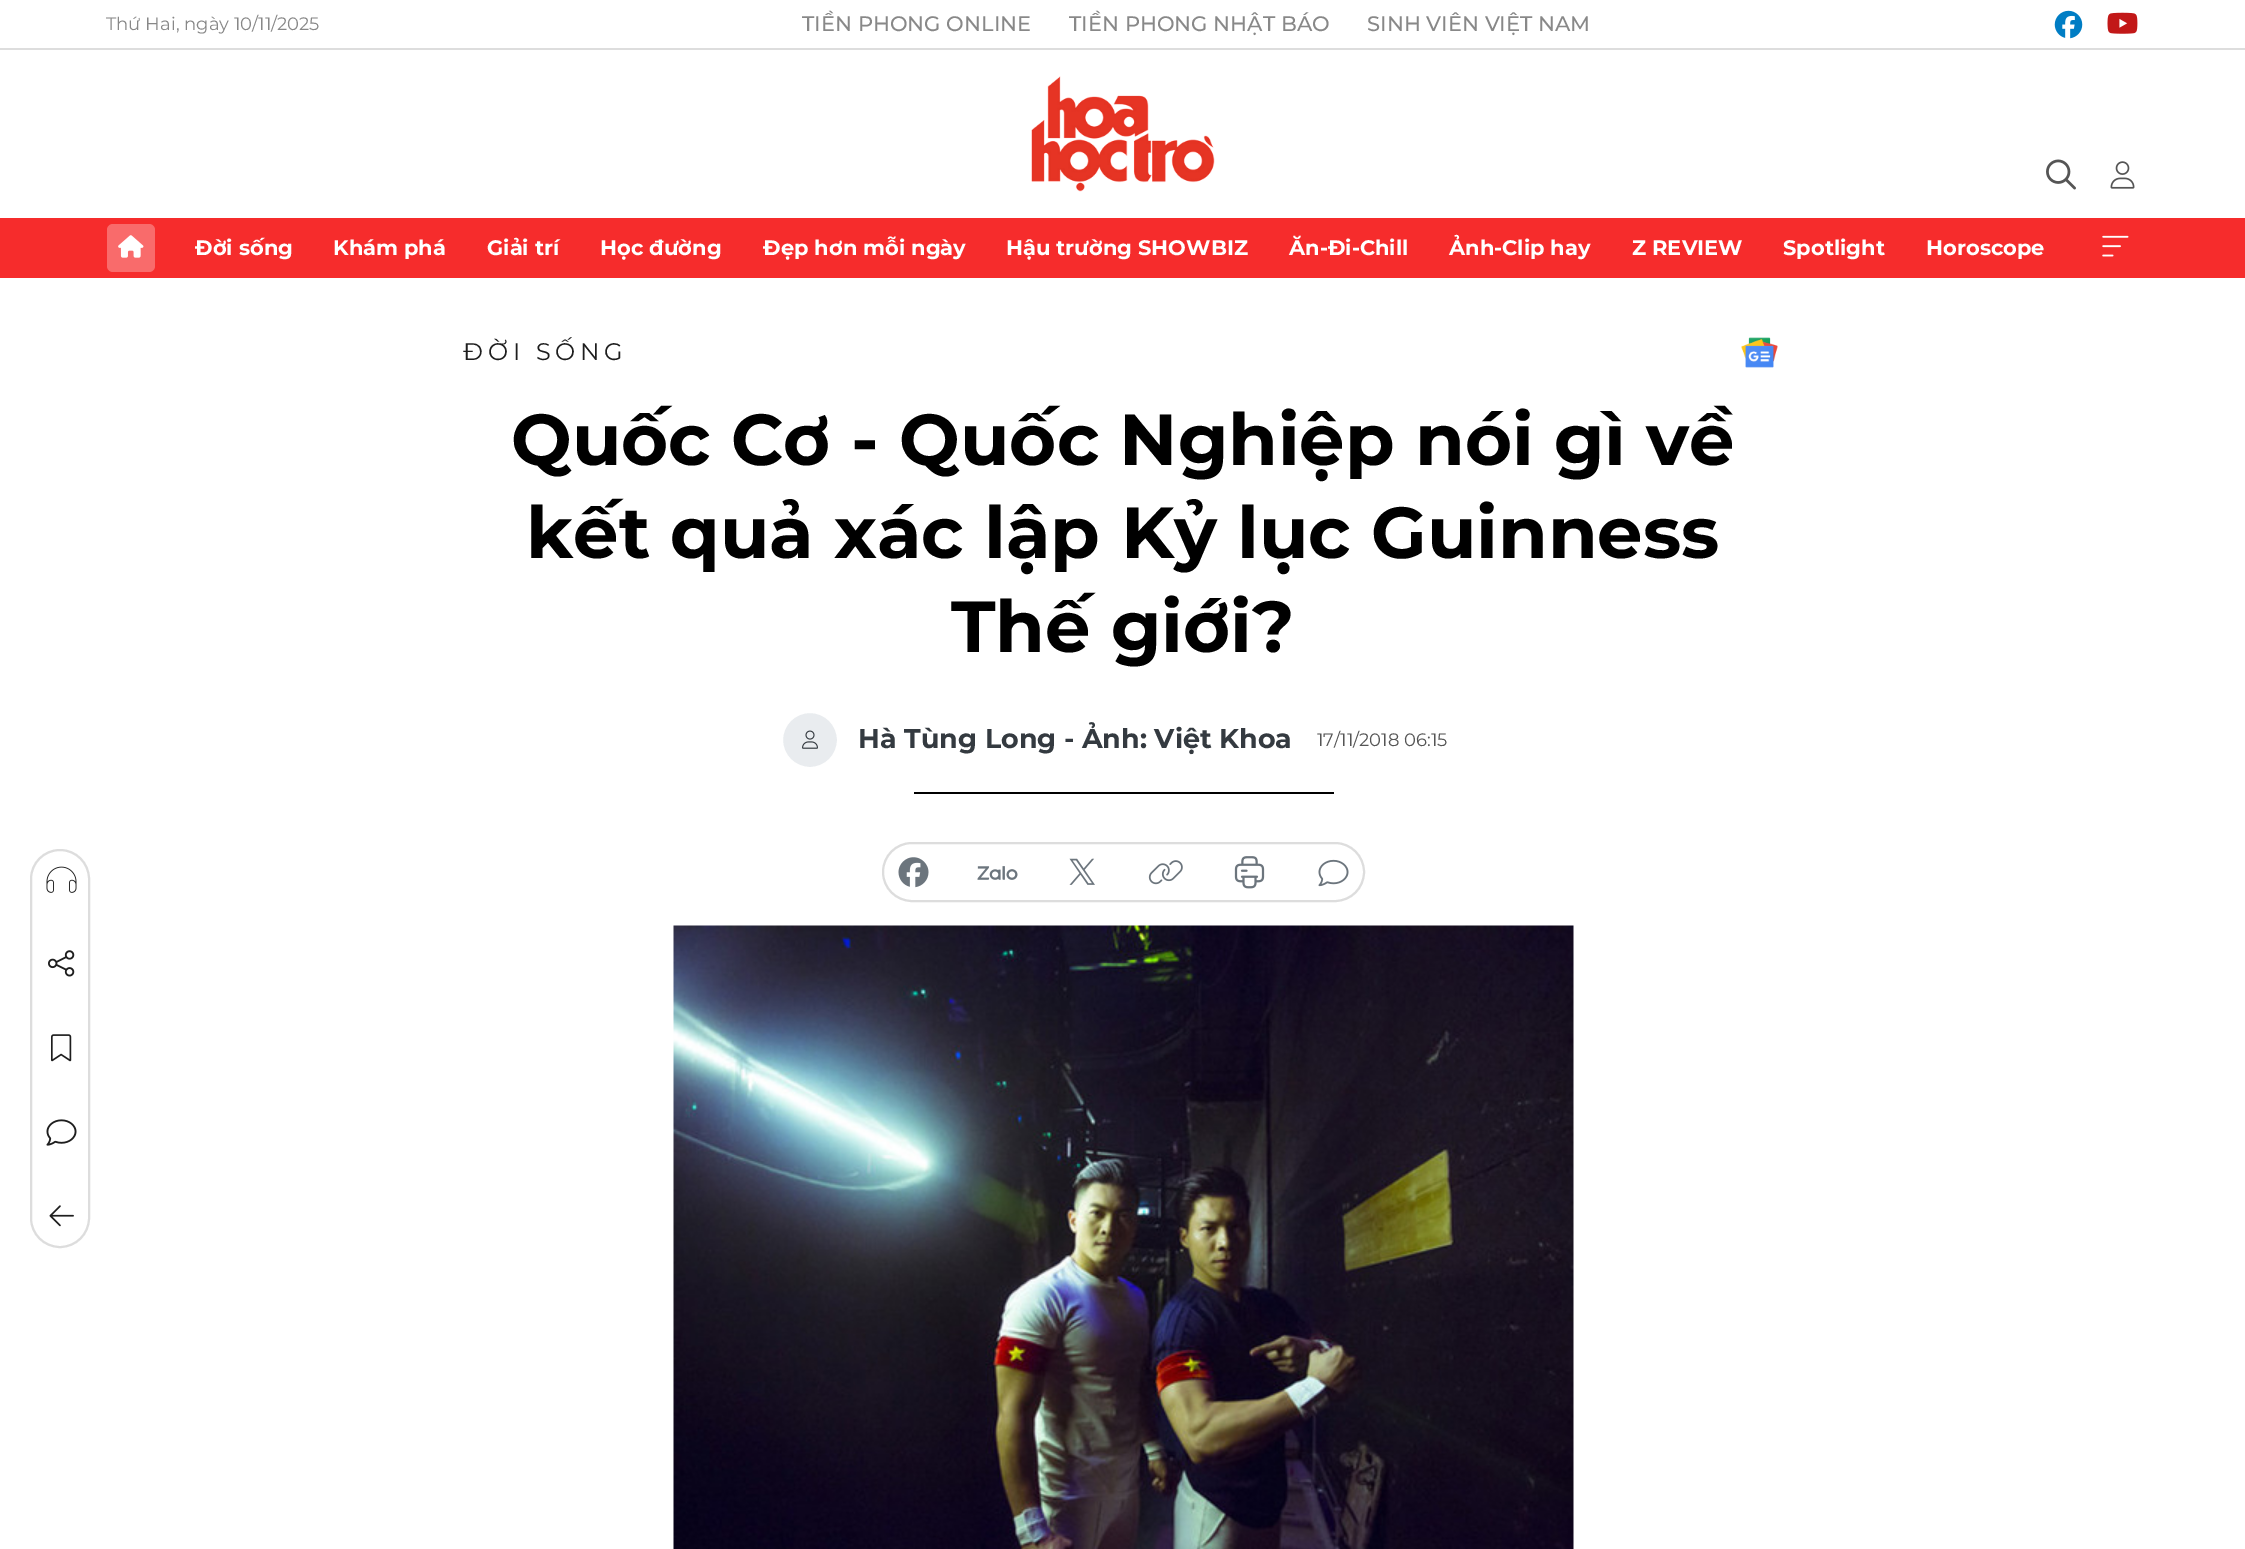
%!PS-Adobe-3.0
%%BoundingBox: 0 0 2245 1549
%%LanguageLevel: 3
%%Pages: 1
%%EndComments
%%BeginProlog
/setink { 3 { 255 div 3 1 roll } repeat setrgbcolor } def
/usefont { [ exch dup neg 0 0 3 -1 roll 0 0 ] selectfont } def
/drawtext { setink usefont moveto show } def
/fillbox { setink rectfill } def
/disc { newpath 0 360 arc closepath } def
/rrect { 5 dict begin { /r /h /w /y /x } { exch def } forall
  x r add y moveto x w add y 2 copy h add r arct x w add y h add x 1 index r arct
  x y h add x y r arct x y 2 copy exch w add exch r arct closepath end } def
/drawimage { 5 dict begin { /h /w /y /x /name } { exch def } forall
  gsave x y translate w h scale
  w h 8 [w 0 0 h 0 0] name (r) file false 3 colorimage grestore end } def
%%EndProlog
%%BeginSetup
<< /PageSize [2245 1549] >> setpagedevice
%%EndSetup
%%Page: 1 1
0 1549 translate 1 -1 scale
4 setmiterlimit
0 0 2245 1549 255 255 255 fillbox
0 48 2245 2 221 221 221 fillbox
(Thứ Hai, ngày 10/11/2025) 106 30 /Montserrat-Regular 18 136 136 136 drawtext
(TIỀN PHONG ONLINE) 802 31 /Montserrat-Medium 21 136 136 136 drawtext
(TIỀN PHONG NHẬT BÁO) 1069 31 /Montserrat-Medium 21 136 136 136 drawtext
(SINH VIÊN VIỆT NAM) 1367 31 /Montserrat-Medium 21 136 136 136 drawtext
(assets/img1.rgb) 2054 10 29 29 drawimage
(assets/img2.rgb) 2107 12 31 22 drawimage
(assets/img3.rgb) 1031 76 184 116 drawimage
(assets/img4.rgb) 2046 159 30 31 drawimage
(assets/img5.rgb) 2110 161 25 28 drawimage
0 218 2245 60 246 44 44 fillbox
249 107 107 setink
107 224 48 48 6 rrect fill
(assets/img6.rgb) 118 235 26 23 drawimage
(Đời sống) 195 255 /Montserrat-Bold 21 255 255 255 drawtext
(Khám phá) 333 255 /Montserrat-Bold 21 255 255 255 drawtext
(Giải trí) 487 255 /Montserrat-Bold 21 255 255 255 drawtext
(Học đường) 600 255 /Montserrat-Bold 21 255 255 255 drawtext
(Đẹp hơn mỗi ngày) 763 255 /Montserrat-Bold 21 255 255 255 drawtext
(Hậu trường SHOWBIZ) 1006 255 /Montserrat-Bold 21 255 255 255 drawtext
(Ăn-Đi-Chill) 1289 255 /Montserrat-Bold 21 255 255 255 drawtext
(Ảnh-Clip hay) 1449 255 /Montserrat-Bold 21 255 255 255 drawtext
(Z REVIEW) 1632 255 /Montserrat-Bold 21 255 255 255 drawtext
(Spotlight) 1783 255 /Montserrat-Bold 21 255 255 255 drawtext
(Horoscope) 1926 255 /Montserrat-Bold 21 255 255 255 drawtext
(assets/img7.rgb) 2102 235 27 22 drawimage
/Montserrat-Regular 24 usefont
30 30 30 setink
463 360 moveto 4.75 0 (ĐỜI SỐNG) ashow
(assets/img8.rgb) 1741 337 37 31 drawimage
(Quốc Cơ - Quốc Nghiệp nói gì về) 511 465 /Montserrat-Bold 72 0 0 0 drawtext
(kết quả xác lập Kỷ lục Guinness) 526 558 /Montserrat-Bold 72 0 0 0 drawtext
(Thế giới?) 951 652 /Montserrat-Bold 72 0 0 0 drawtext
233 236 239 setink
810 740 28.5 disc gsave fill grestore
255 255 255 setink
3 setlinewidth
stroke
(assets/img9.rgb) 802 730 16 19 drawimage
(Hà Tùng Long - Ảnh: Việt Khoa) 858 748 /Montserrat-Bold 27 52 58 64 drawtext
(17/11/2018 06:15) 1317 746 /Montserrat-Regular 18 85 85 85 drawtext
914 792 420 2 0 0 0 fillbox
221 221 221 setink
2 setlinewidth
31 850 58 397 29 rrect stroke
(assets/img10.rgb) 46 866 31 27 drawimage
(assets/img11.rgb) 48 950 27 27 drawimage
(assets/img12.rgb) 51 1034 21 28 drawimage
(assets/img13.rgb) 46 1119 31 27 drawimage
(assets/img14.rgb) 49 1205 25 22 drawimage
883 843 481 58 29 rrect stroke
(assets/img15.rgb) 898 857 31 31 drawimage
(assets/img16.rgb) 977 866 41 14 drawimage
(assets/img17.rgb) 1069 858 26 27 drawimage
(assets/img18.rgb) 1148 860 35 25 drawimage
(assets/img19.rgb) 1234 856 31 33 drawimage
(assets/img20.rgb) 1318 859 31 28 drawimage
(assets/img21.rgb) 673 925 901 624 drawimage
showpage
%%EOF
